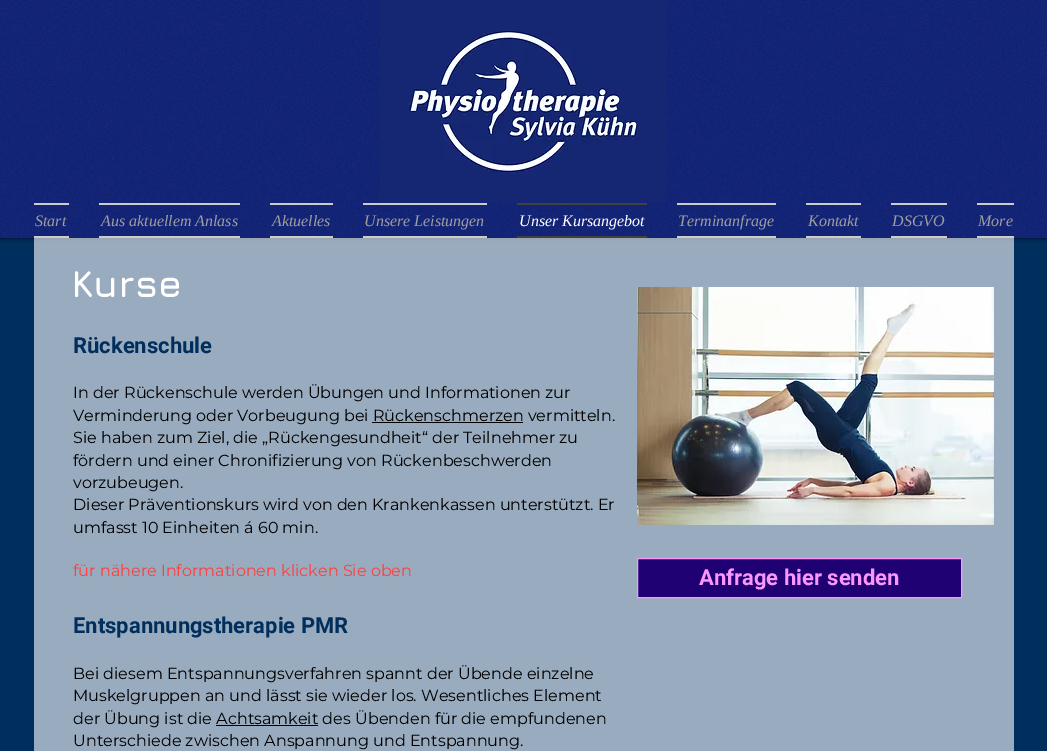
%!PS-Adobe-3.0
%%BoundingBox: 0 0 1047 751
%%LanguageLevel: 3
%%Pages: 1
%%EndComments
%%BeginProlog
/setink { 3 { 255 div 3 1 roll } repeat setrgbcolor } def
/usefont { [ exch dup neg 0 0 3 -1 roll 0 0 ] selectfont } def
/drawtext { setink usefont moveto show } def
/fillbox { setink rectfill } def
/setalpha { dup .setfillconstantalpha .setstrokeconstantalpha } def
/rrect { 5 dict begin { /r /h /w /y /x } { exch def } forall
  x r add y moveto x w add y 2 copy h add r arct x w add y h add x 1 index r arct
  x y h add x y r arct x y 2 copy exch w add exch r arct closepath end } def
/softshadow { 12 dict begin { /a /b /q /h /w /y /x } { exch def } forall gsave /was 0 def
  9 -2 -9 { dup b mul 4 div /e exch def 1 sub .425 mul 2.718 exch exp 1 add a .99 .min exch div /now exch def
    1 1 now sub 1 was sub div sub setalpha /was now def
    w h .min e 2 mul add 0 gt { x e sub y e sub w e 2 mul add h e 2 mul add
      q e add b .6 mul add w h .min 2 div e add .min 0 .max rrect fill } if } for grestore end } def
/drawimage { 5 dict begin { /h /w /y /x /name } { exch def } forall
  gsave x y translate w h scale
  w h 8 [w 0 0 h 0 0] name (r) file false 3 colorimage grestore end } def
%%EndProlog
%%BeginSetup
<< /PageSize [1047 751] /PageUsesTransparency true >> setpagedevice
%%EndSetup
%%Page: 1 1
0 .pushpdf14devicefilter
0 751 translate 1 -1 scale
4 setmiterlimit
0 0 1047 751 0 46 93 fillbox
0 0 0 setink
0 0 1047 238 0 2.5 0.7 softshadow
0 0 1047 238 17 35 120 fillbox
(assets/img1.rgb) 0 0 1047 238 drawimage
(assets/img2.rgb) 380 0 287 203 drawimage
34 203 35 2 204 204 204 fillbox
34 236 35 2 204 204 204 fillbox
(Start) 35 226 /LiberationSerif-Italic 16 158 158 158 drawtext
99 203 141 2 204 204 204 fillbox
99 236 141 2 204 204 204 fillbox
(Aus aktuellem Anlass) 101 226 /LiberationSerif-Italic 16 158 158 158 drawtext
270 203 63 2 204 204 204 fillbox
270 236 63 2 204 204 204 fillbox
(Aktuelles) 272 226 /LiberationSerif-Italic 16 158 158 158 drawtext
363 203 124 2 204 204 204 fillbox
363 236 124 2 204 204 204 fillbox
(Unsere Leistungen) 364 226 /LiberationSerif-Italic 16 158 158 158 drawtext
517 203 130 2 65 65 65 fillbox
517 236 130 2 65 65 65 fillbox
(Unser Kursangebot) 519 226 /LiberationSerif-Italic 16 255 255 255 drawtext
677 203 99 2 204 204 204 fillbox
677 236 99 2 204 204 204 fillbox
(Terminanfrage) 678 226 /LiberationSerif-Italic 16 158 158 158 drawtext
806 203 55 2 204 204 204 fillbox
806 236 55 2 204 204 204 fillbox
(Kontakt) 808 226 /LiberationSerif-Italic 16 158 158 158 drawtext
891 203 56 2 204 204 204 fillbox
891 236 56 2 204 204 204 fillbox
(DSGVO) 892 226 /LiberationSerif-Italic 16 158 158 158 drawtext
977 203 37 2 204 204 204 fillbox
977 236 37 2 204 204 204 fillbox
(More) 978 226 /LiberationSerif-Italic 16 158 158 158 drawtext
0.6 setalpha
34 238 980 513 255 255 255 fillbox
1 setalpha
(Kurse) 71 297 /Jura-Bold 38 255 255 255 drawtext
(Rückenschule) 73 353 /Roboto-Bold 22 0 46 93 drawtext
(In der Rückenschule werden Übungen und Informationen zur) 73 398 /Montserrat-Regular 16 0 0 0 drawtext
(Verminderung oder Vorbeugung bei Rückenschmerzen vermitteln.) 73 421 /Montserrat-Regular 16 0 0 0 drawtext
372 422 151 1 0 0 0 fillbox
(Sie haben zum Ziel, die „Rückengesundheit“ der Teilnehmer zu) 73 443 /Montserrat-Regular 16 0 0 0 drawtext
(fördern und einer Chronifizierung von Rückenbeschwerden) 73 466 /Montserrat-Regular 16 0 0 0 drawtext
(vorzubeugen.) 73 488 /Montserrat-Regular 16 0 0 0 drawtext
(Dieser Präventionskurs wird von den Krankenkassen unterstützt. Er) 73 510 /Montserrat-Regular 16 0 0 0 drawtext
(umfasst 10 Einheiten á 60 min.) 73 533 /Montserrat-Regular 16 0 0 0 drawtext
(für nähere Informationen klicken Sie oben) 73 576 /Montserrat-Regular 16 255 64 64 drawtext
(Entspannungstherapie PMR) 73 633 /Roboto-Bold 22 0 46 93 drawtext
(Bei diesem Entspannungsverfahren spannt der Übende einzelne) 73 679 /Montserrat-Regular 16 0 0 0 drawtext
(Muskelgruppen an und lässt sie wieder los. Wesentliches Element) 73 701 /Montserrat-Regular 16 0 0 0 drawtext
(der Übung ist die Achtsamkeit des Übenden für die empfundenen) 73 724 /Montserrat-Regular 16 0 0 0 drawtext
216 725 102 1 0 0 0 fillbox
(Unterschiede zwischen Anspannung und Entspannung.) 73 746 /Montserrat-Regular 16 0 0 0 drawtext
(assets/img3.rgb) 637 287 357 238 drawimage
32 1 116 setink
637.5 558.5 moveto 961.5 558.5 lineto 961.5 597.5 lineto 637.5 597.5 lineto closepath gsave fill grestore
252 150 255 setink
stroke
(Anfrage hier senden) 699 585 /Roboto-Bold 22 252 150 255 drawtext
.poppdf14devicefilter showpage
%%EOF
